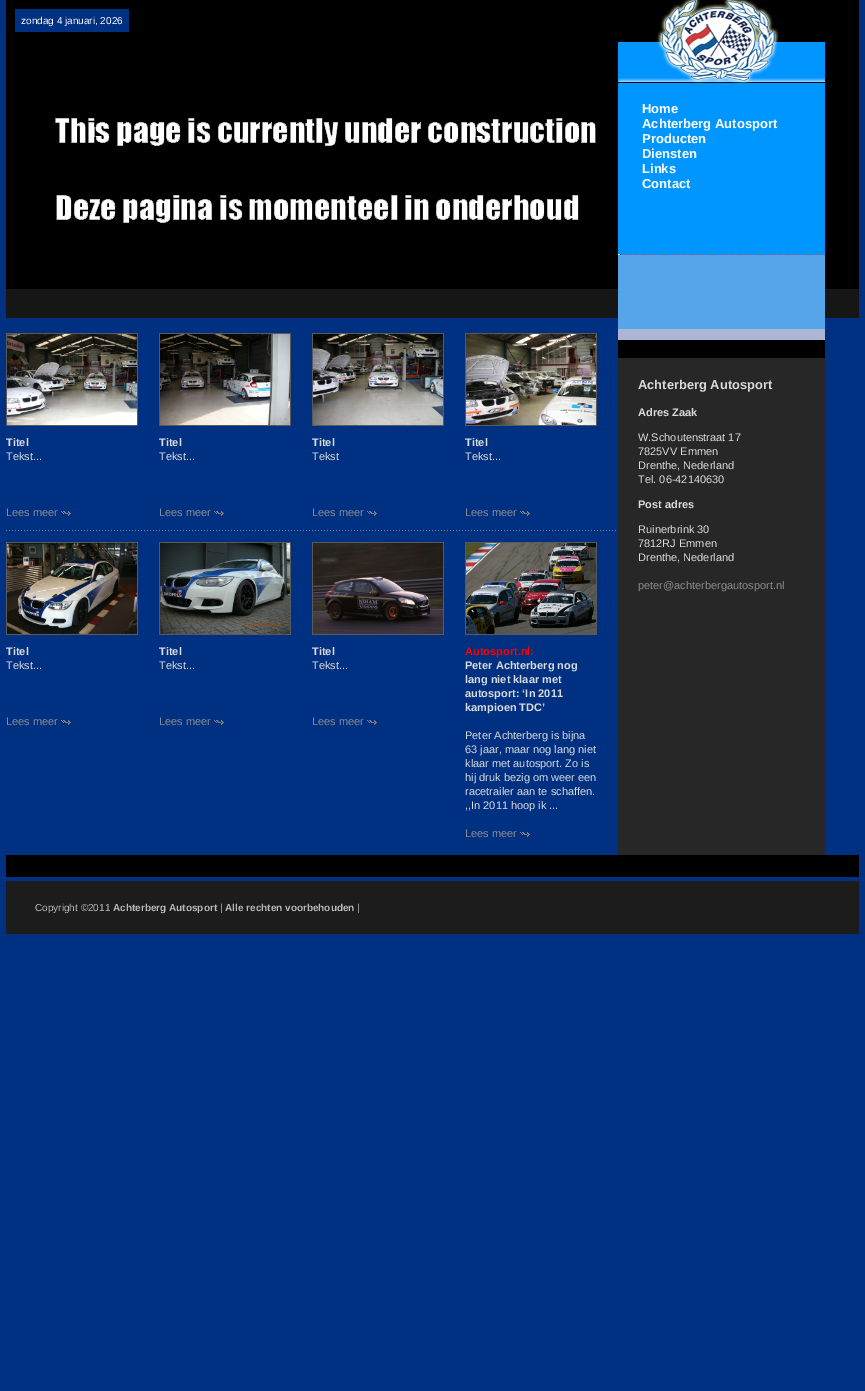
%!PS-Adobe-3.0
%%BoundingBox: 0 0 865 1391
%%LanguageLevel: 3
%%Pages: 1
%%EndComments
%%BeginProlog
/setink { 3 { 255 div 3 1 roll } repeat setrgbcolor } def
/usefont { [ exch dup neg 0 0 3 -1 roll 0 0 ] selectfont } def
/drawtext { setink usefont moveto show } def
/fillbox { setink rectfill } def
/drawimage { 5 dict begin { /h /w /y /x /name } { exch def } forall
  gsave x y translate w h scale
  w h 8 [w 0 0 h 0 0] name (r) file false 3 colorimage grestore end } def
%%EndProlog
%%BeginSetup
<< /PageSize [865 1391] >> setpagedevice
%%EndSetup
%%Page: 1 1
0 1391 translate 1 -1 scale
4 setmiterlimit
0 0 865 1391 0 48 130 fillbox
6 0 853 41 0 0 0 fillbox
15 9 114 23 0 48 130 fillbox
(zondag 4 januari, 2026) 21 24 /LiberationSans-Regular 10 255 255 255 drawtext
(assets/img4.rgb) 6 41 853 219 drawimage
618 83 207 172 0 150 255 fillbox
(assets/img1.rgb) 618 0 207 83 drawimage
(Home) 642 113 /LiberationSans-Bold 13 255 255 255 drawtext
(Achterberg Autosport) 642 128 /LiberationSans-Bold 13 255 255 255 drawtext
(Producten) 642 143 /LiberationSans-Bold 13 255 255 255 drawtext
(Diensten) 642 158 /LiberationSans-Bold 13 255 255 255 drawtext
(Links) 642 173 /LiberationSans-Bold 13 255 255 255 drawtext
(Contact) 642 188 /LiberationSans-Bold 13 255 255 255 drawtext
(assets/img2.rgb) 621 254 202 1 drawimage
(assets/img3.rgb) 618 254 3 1 drawimage
6 260 853 29 0 0 0 fillbox
6 289 853 29 22 22 22 fillbox
618 255 207 74 86 165 234 fillbox
618 329 207 11 172 181 214 fillbox
618 340 207 18 0 0 0 fillbox
618 358 207 497 39 39 39 fillbox
(Achterberg Autosport) 638 389 /LiberationSans-Bold 12.9 218 218 218 drawtext
(Adres Zaak) 638 416 /LiberationSans-Bold 11 218 218 218 drawtext
(W.Schoutenstraat 17) 638 441 /LiberationSans-Regular 11 218 218 218 drawtext
(7825VV Emmen) 638 455 /LiberationSans-Regular 11 218 218 218 drawtext
(Drenthe, Nederland) 638 469 /LiberationSans-Regular 11 218 218 218 drawtext
(Tel. 06-42140630) 638 483 /LiberationSans-Regular 11 218 218 218 drawtext
(Post adres) 638 508 /LiberationSans-Bold 11 218 218 218 drawtext
(Ruinerbrink 30) 638 533 /LiberationSans-Regular 11 218 218 218 drawtext
(7812RJ Emmen) 638 547 /LiberationSans-Regular 11 218 218 218 drawtext
(Drenthe, Nederland) 638 561 /LiberationSans-Regular 11 218 218 218 drawtext
(peter@achterbergautosport.nl) 638 589 /LiberationSans-Regular 11 140 140 140 drawtext
6 333 132 93 90 90 90 fillbox
(assets/img5.rgb) 7 334 130 91 drawimage
(Titel) 6 446 /LiberationSans-Bold 11 218 218 218 drawtext
(Tekst...) 6 460 /LiberationSans-Regular 11 218 218 218 drawtext
(Lees meer) 6 516 /LiberationSans-Regular 11 140 140 140 drawtext
(assets/img6.rgb) 61 511 10 5 drawimage
159 333 132 93 90 90 90 fillbox
(assets/img7.rgb) 160 334 130 91 drawimage
(Titel) 159 446 /LiberationSans-Bold 11 218 218 218 drawtext
(Tekst...) 159 460 /LiberationSans-Regular 11 218 218 218 drawtext
(Lees meer) 159 516 /LiberationSans-Regular 11 140 140 140 drawtext
(assets/img6.rgb) 214 511 10 5 drawimage
312 333 132 93 90 90 90 fillbox
(assets/img8.rgb) 313 334 130 91 drawimage
(Titel) 312 446 /LiberationSans-Bold 11 218 218 218 drawtext
(Tekst) 312 460 /LiberationSans-Regular 11 218 218 218 drawtext
(Lees meer) 312 516 /LiberationSans-Regular 11 140 140 140 drawtext
(assets/img6.rgb) 367 511 10 5 drawimage
465 333 132 93 90 90 90 fillbox
(assets/img9.rgb) 466 334 130 91 drawimage
(Titel) 465 446 /LiberationSans-Bold 11 218 218 218 drawtext
(Tekst...) 465 460 /LiberationSans-Regular 11 218 218 218 drawtext
(Lees meer) 465 516 /LiberationSans-Regular 11 140 140 140 drawtext
(assets/img6.rgb) 520 511 10 5 drawimage
(assets/img10.rgb) 6 530 610 1 drawimage
6 542 132 93 90 90 90 fillbox
(assets/img11.rgb) 7 543 130 91 drawimage
(Titel) 6 655 /LiberationSans-Bold 11 218 218 218 drawtext
(Tekst...) 6 669 /LiberationSans-Regular 11 218 218 218 drawtext
(Lees meer) 6 725 /LiberationSans-Regular 11 140 140 140 drawtext
(assets/img6.rgb) 61 720 10 5 drawimage
159 542 132 93 90 90 90 fillbox
(assets/img12.rgb) 160 543 130 91 drawimage
(Titel) 159 655 /LiberationSans-Bold 11 218 218 218 drawtext
(Tekst...) 159 669 /LiberationSans-Regular 11 218 218 218 drawtext
(Lees meer) 159 725 /LiberationSans-Regular 11 140 140 140 drawtext
(assets/img6.rgb) 214 720 10 5 drawimage
312 542 132 93 90 90 90 fillbox
(assets/img13.rgb) 313 543 130 91 drawimage
(Titel) 312 655 /LiberationSans-Bold 11 218 218 218 drawtext
(Tekst...) 312 669 /LiberationSans-Regular 11 218 218 218 drawtext
(Lees meer) 312 725 /LiberationSans-Regular 11 140 140 140 drawtext
(assets/img6.rgb) 367 720 10 5 drawimage
465 542 132 93 90 90 90 fillbox
(assets/img14.rgb) 466 543 130 91 drawimage
(Autosport.nl:) 465 655 /LiberationSans-Bold 11 255 0 0 drawtext
(Peter Achterberg nog) 465 669 /LiberationSans-Bold 11 218 218 218 drawtext
(lang niet klaar met) 465 683 /LiberationSans-Bold 11 218 218 218 drawtext
(autosport: ‘In 2011) 465 697 /LiberationSans-Bold 11 218 218 218 drawtext
(kampioen TDC’) 465 711 /LiberationSans-Bold 11 218 218 218 drawtext
(Peter Achterberg is bijna) 465 739 /LiberationSans-Regular 11 218 218 218 drawtext
(63 jaar, maar nog lang niet) 465 753 /LiberationSans-Regular 11 218 218 218 drawtext
(klaar met autosport. Zo is) 465 767 /LiberationSans-Regular 11 218 218 218 drawtext
(hij druk bezig om weer een) 465 781 /LiberationSans-Regular 11 218 218 218 drawtext
(racetrailer aan te schaffen.) 465 795 /LiberationSans-Regular 11 218 218 218 drawtext
(,,In 2011 hoop ik ...) 465 809 /LiberationSans-Regular 11 218 218 218 drawtext
(Lees meer) 465 837 /LiberationSans-Regular 11 140 140 140 drawtext
(assets/img6.rgb) 520 832 10 5 drawimage
6 855 853 22 0 0 0 fillbox
6 881 853 53 28 28 28 fillbox
(Copyright ©2011) 35 911 /LiberationSans-Regular 10 186 186 186 drawtext
(Achterberg Autosport) 113 911 /LiberationSans-Bold 10 186 186 186 drawtext
(|) 220 911 /LiberationSans-Regular 10 186 186 186 drawtext
(Alle rechten voorbehouden) 225 911 /LiberationSans-Bold 10 186 186 186 drawtext
(|) 357 911 /LiberationSans-Regular 10 186 186 186 drawtext
showpage
%%EOF
